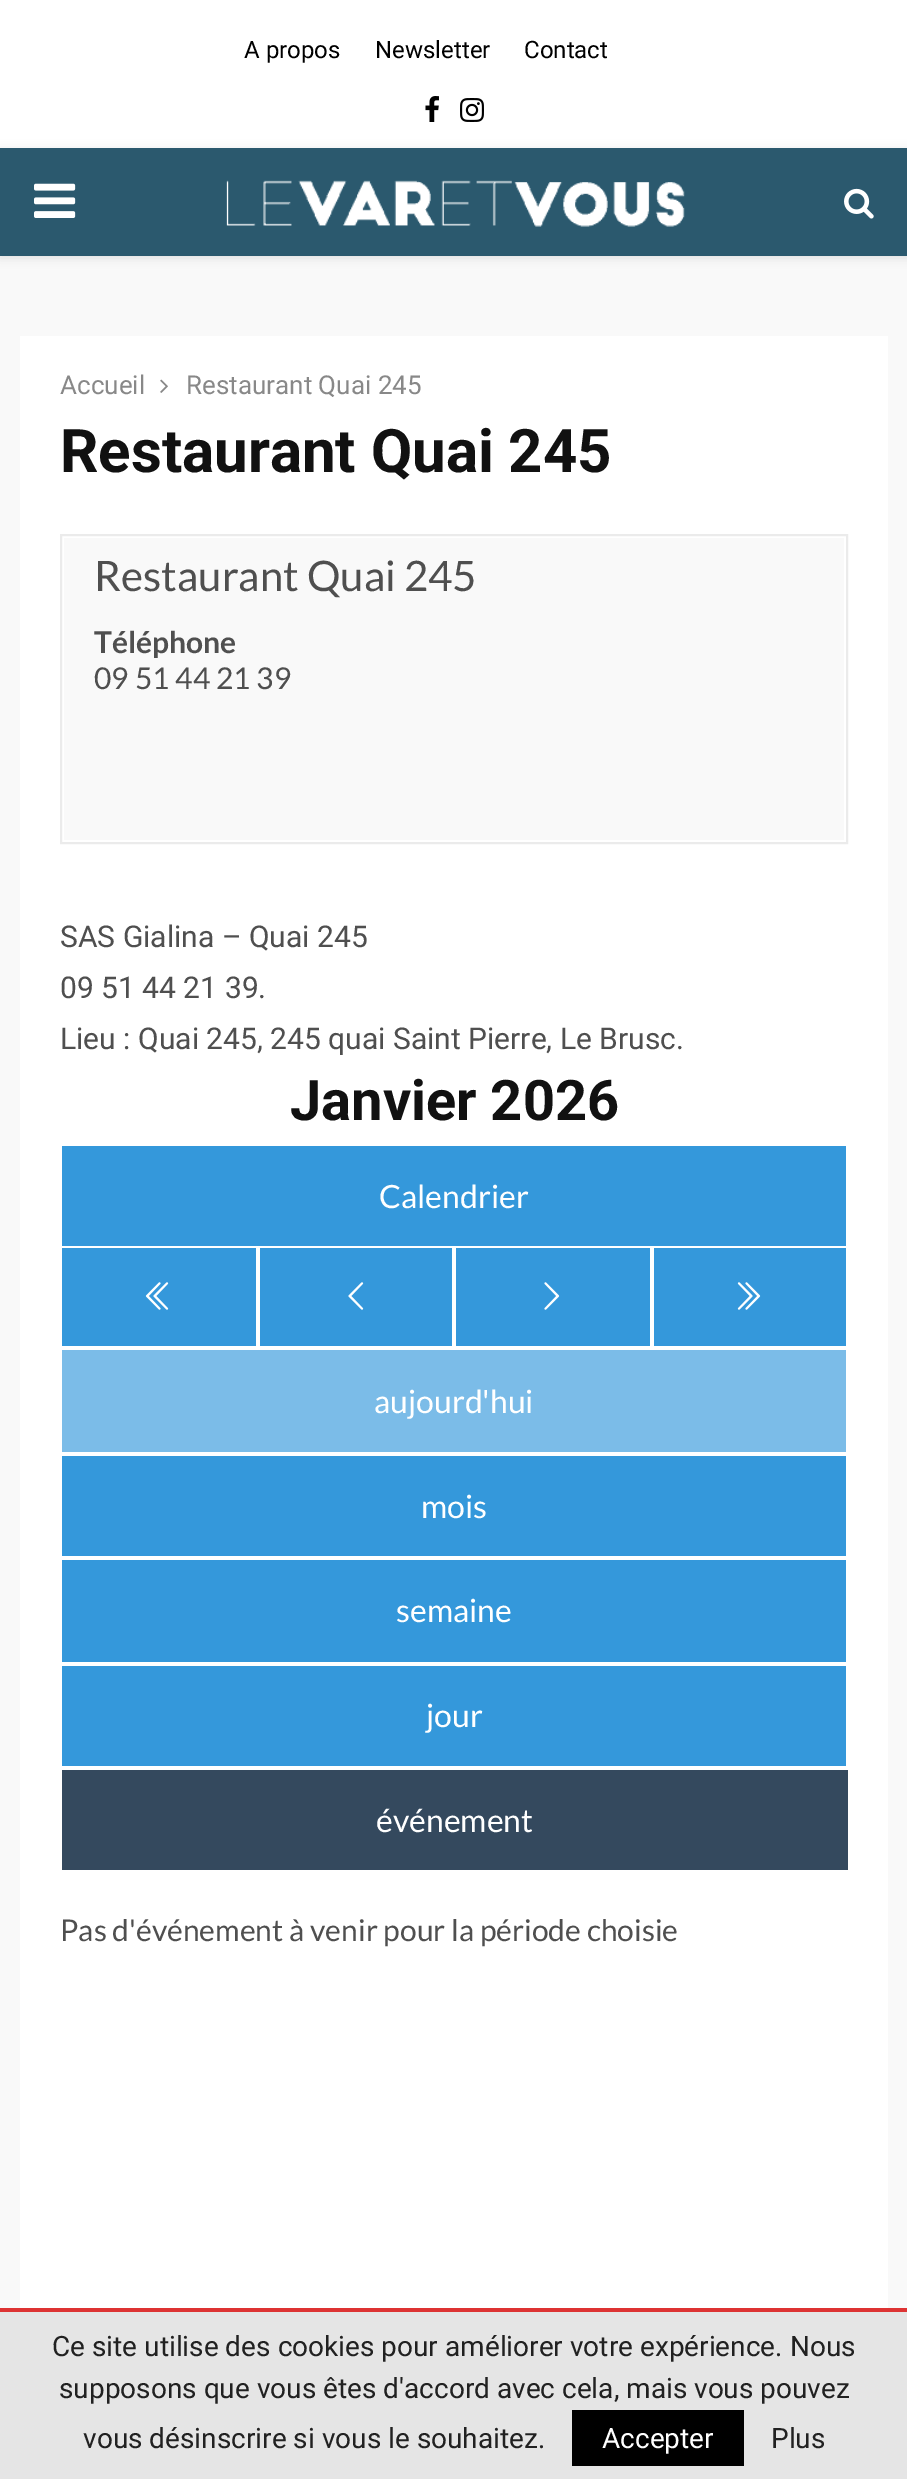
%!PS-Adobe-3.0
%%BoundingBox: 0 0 907 2479
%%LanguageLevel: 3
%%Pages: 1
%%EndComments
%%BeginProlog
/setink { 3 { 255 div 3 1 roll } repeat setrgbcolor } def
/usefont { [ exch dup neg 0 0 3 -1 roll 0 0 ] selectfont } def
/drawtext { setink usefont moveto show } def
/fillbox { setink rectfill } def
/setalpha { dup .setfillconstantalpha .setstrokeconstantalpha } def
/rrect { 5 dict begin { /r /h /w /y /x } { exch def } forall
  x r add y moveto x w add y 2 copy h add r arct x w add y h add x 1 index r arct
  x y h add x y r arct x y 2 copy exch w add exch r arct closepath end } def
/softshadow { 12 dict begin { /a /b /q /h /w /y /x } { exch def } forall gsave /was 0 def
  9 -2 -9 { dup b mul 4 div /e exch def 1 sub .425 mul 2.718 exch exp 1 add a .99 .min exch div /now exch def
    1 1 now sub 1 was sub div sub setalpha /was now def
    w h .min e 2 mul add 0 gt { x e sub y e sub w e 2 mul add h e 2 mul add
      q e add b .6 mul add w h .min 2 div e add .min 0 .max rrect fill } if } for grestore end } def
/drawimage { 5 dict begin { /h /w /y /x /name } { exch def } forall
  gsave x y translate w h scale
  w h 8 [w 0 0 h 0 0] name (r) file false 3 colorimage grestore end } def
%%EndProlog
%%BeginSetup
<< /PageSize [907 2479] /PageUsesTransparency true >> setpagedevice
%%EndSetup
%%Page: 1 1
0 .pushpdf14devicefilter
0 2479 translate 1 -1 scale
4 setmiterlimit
0 0 907 2479 249 249 249 fillbox
0 0 907 148 255 255 255 fillbox
(A propos) 244 58 /Roboto-Regular 24 0 0 0 drawtext
(Newsletter) 375 58 /Roboto-Regular 24 0 0 0 drawtext
(Contact) 524 58 /Roboto-Regular 24 0 0 0 drawtext
(assets/img1.rgb) 425 96 14 26 drawimage
(assets/img2.rgb) 460 98 24 24 drawimage
190 190 190 setink
0 150 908 108 0 5 0.46 softshadow
0 148 907 108 43 89 110 fillbox
(assets/img3.rgb) 34 183 42 35 drawimage
(assets/img4.rgb) 226 180 459 47 drawimage
(assets/img5.rgb) 844 188 30 31 drawimage
20 336 868 1972 255 255 255 fillbox
(Accueil) 60 394 /Roboto-Regular 26 136 136 136 drawtext
(assets/img6.rgb) 160 379 8 14 drawimage
(Restaurant Quai 245) 186 394 /Roboto-Regular 26 136 136 136 drawtext
(Restaurant Quai 245) 60 472 /Roboto-Bold 60 17 17 17 drawtext
235 235 235 setink
2 setlinewidth
61 535 786 308 rectstroke
64 538 780 302 249 249 249 fillbox
(Restaurant Quai 245) 94 591 /Lato-Regular 42 79 79 79 drawtext
(Téléphone) 94 653 /Lato-Bold 30 79 79 79 drawtext
(09 51 44 21 39) 94 689 /Lato-Regular 30 79 79 79 drawtext
(SAS Gialina – Quai 245) 60 947 /Roboto-Regular 30 79 79 79 drawtext
(09 51 44 21 39.) 60 998 /Roboto-Regular 30 79 79 79 drawtext
(Lieu : Quai 245, 245 quai Saint Pierre, Le Brusc.) 60 1049 /Roboto-Regular 30 79 79 79 drawtext
(Janvier 2026) 290 1120 /Roboto-Bold 56 17 17 17 drawtext
62 1146 784 100 52 152 219 fillbox
(Calendrier) 379 1208 /Lato-Regular 32 255 255 255 drawtext
62 1248 194 98 52 152 219 fillbox
(assets/img7.rgb) 145 1282 24 28 drawimage
260 1248 192 98 52 152 219 fillbox
(assets/img8.rgb) 348 1282 16 28 drawimage
456 1248 194 98 52 152 219 fillbox
(assets/img9.rgb) 544 1282 16 28 drawimage
654 1248 192 98 52 152 219 fillbox
(assets/img10.rgb) 737 1282 24 28 drawimage
62 1350 784 102 123 188 232 fillbox
(aujourd'hui) 374 1413 /Lato-Regular 32 255 255 255 drawtext
62 1456 784 100 52 152 219 fillbox
(mois) 421 1518 /Lato-Regular 32 255 255 255 drawtext
62 1560 784 102 52 152 219 fillbox
(semaine) 396 1622 /Lato-Regular 32 255 255 255 drawtext
62 1666 784 100 52 152 219 fillbox
(jour) 426 1727 /Lato-Regular 32 255 255 255 drawtext
62 1770 786 100 52 73 94 fillbox
(événement) 376 1832 /Lato-Regular 32 255 255 255 drawtext
(Pas d'événement à venir pour la période choisie) 60 1941 /Lato-Regular 30 79 79 79 drawtext
0 2312 907 167 229 229 229 fillbox
0 2308 907 4 221 51 51 fillbox
(Ce site utilise des cookies pour améliorer votre expérience. Nous) 52 2356 /Roboto-Regular 28 33 33 33 drawtext
(supposons que vous êtes d'accord avec cela, mais vous pouvez) 59 2398 /Roboto-Regular 28 33 33 33 drawtext
(vous désinscrire si vous le souhaitez.) 83 2448 /Roboto-Regular 28 33 33 33 drawtext
572 2410 172 56 0 0 0 fillbox
(Accepter) 602 2448 /Roboto-Regular 28 255 255 255 drawtext
(Plus) 771 2448 /Roboto-Regular 28 33 33 33 drawtext
.poppdf14devicefilter showpage
%%EOF
